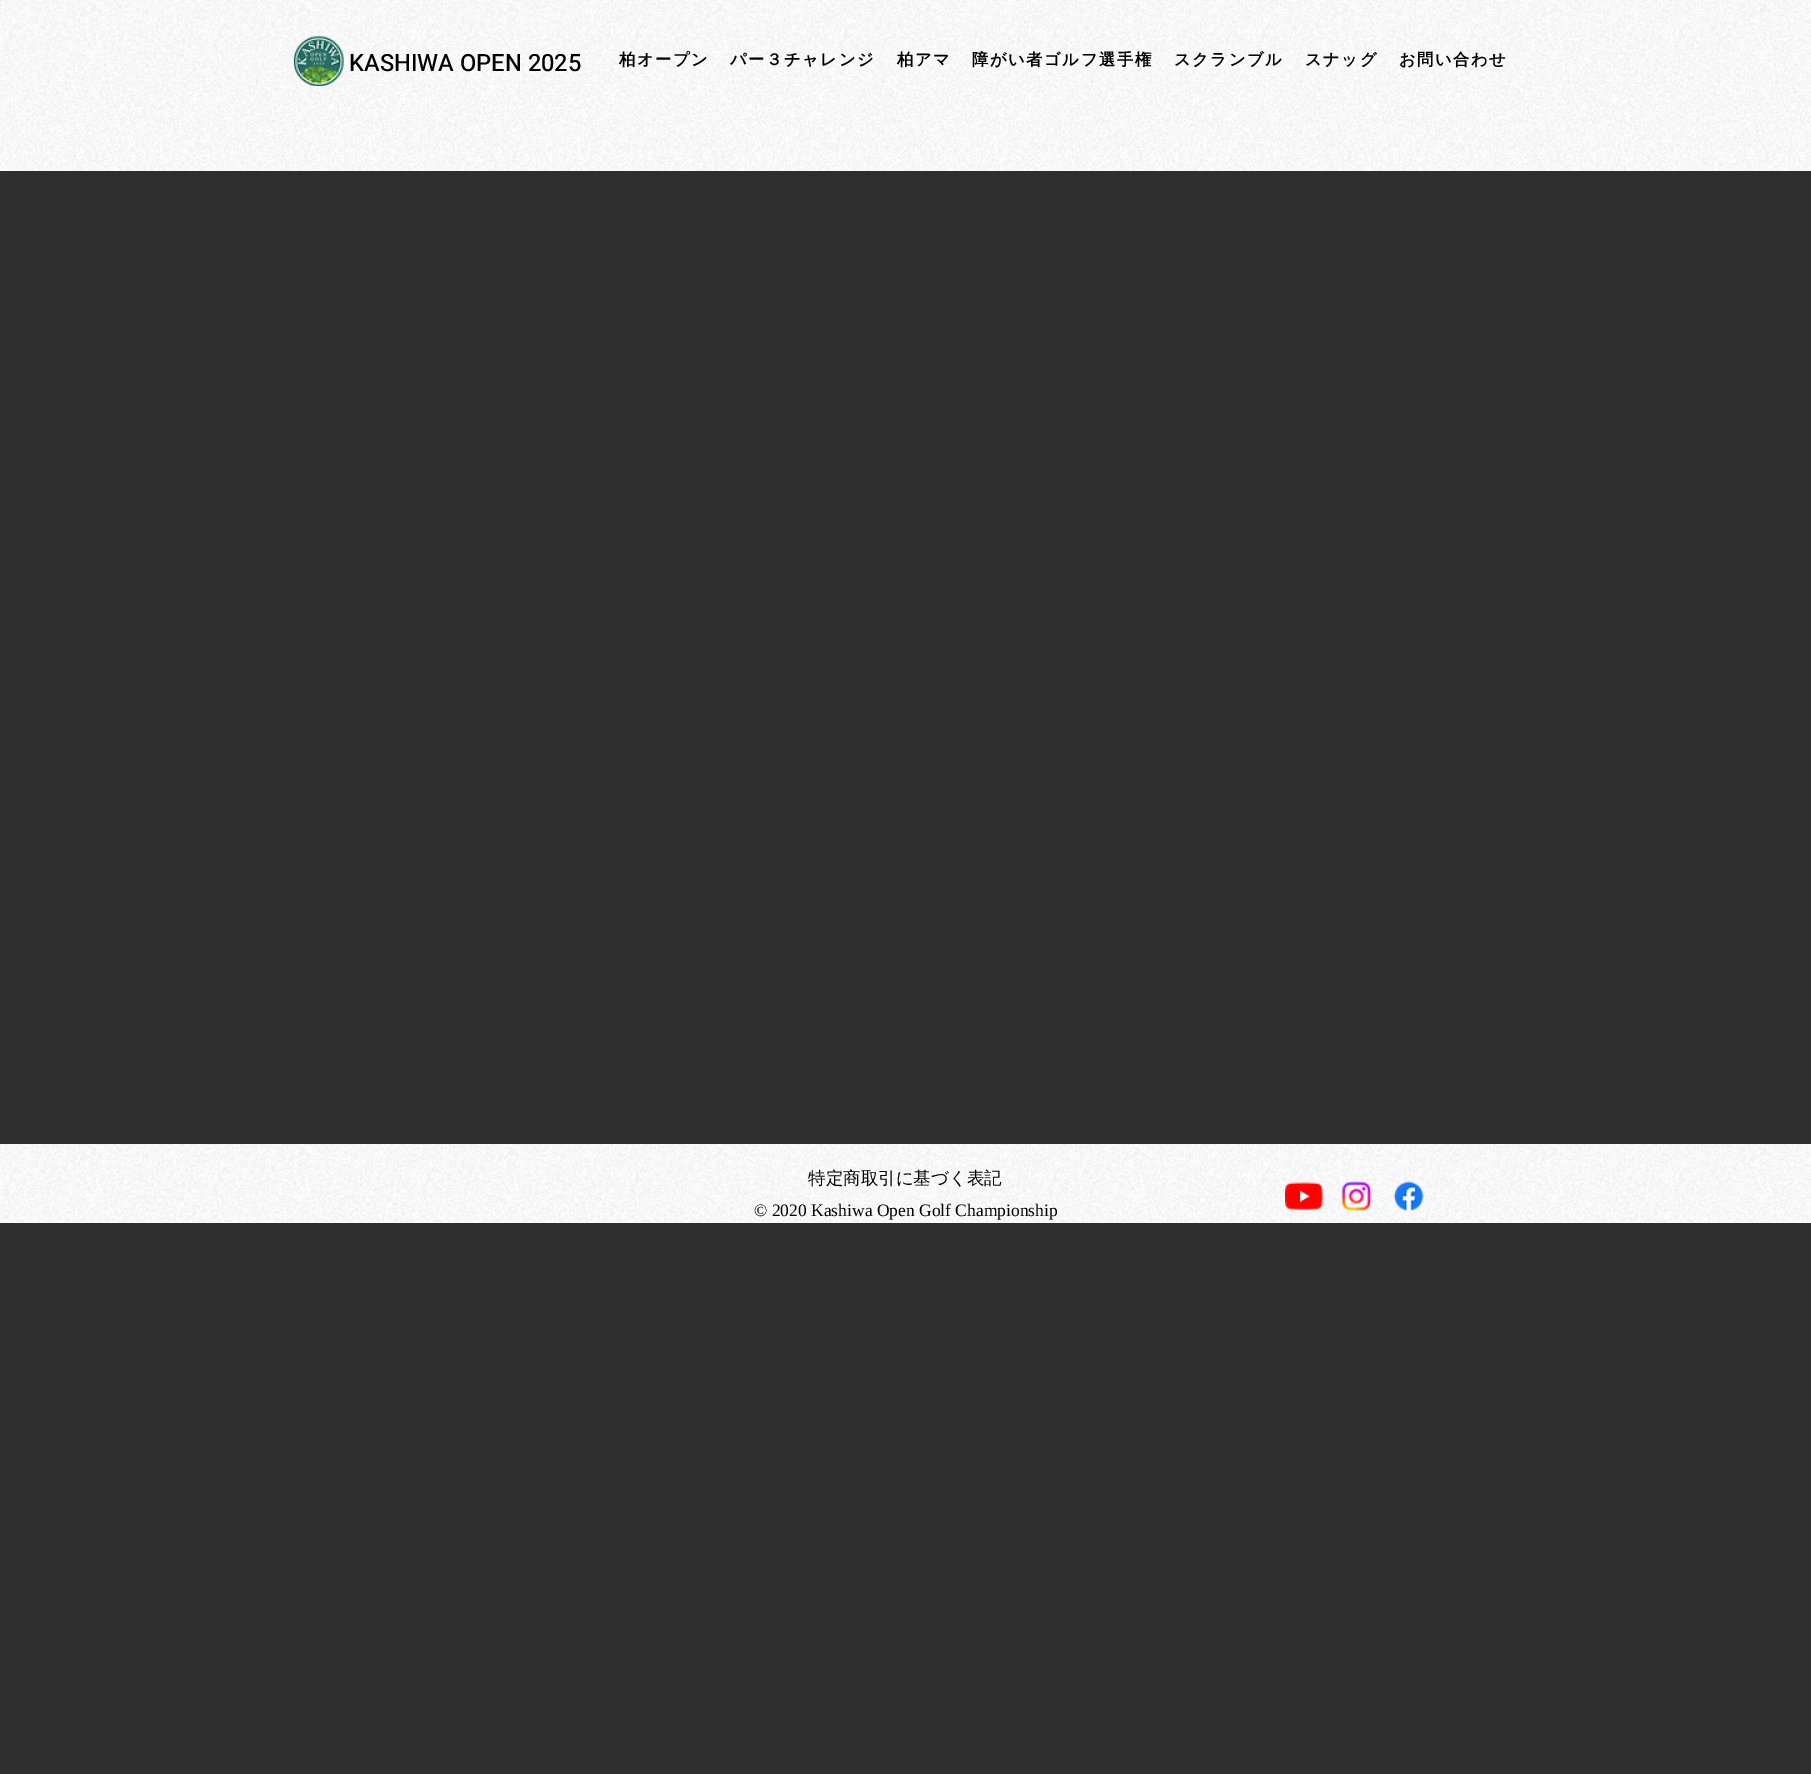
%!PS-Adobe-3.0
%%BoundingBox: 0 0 1811 1774
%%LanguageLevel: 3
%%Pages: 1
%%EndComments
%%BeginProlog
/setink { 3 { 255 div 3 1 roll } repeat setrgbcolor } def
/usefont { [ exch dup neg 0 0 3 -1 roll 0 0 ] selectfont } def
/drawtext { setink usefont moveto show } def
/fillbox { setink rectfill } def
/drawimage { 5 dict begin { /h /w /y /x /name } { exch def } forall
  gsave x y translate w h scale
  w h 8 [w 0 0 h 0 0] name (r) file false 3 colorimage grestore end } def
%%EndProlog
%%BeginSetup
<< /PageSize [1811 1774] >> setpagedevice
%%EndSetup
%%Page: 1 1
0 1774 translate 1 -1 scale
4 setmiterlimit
0 0 1811 1774 47 46 46 fillbox
0 0 1811 171 255 255 255 fillbox
(assets/img1.rgb) 0 0 1811 171 drawimage
(assets/img2.rgb) 293 36 51 51 drawimage
(KASHIWA OPEN 2025) 349 71 /Heebo-Medium 23.75 0 0 0 drawtext
/WenQuanYiZenHei-Bold 16.25 usefont
619 65 moveto 1.6 0 (柏オープン) ashow
730 65 moveto 1.6 0 (パー３チャレンジ) ashow
897 65 moveto 1.6 0 (柏アマ) ashow
972 65 moveto 1.6 0 (障がい者ゴルフ選手権) ashow
1174 65 moveto 1.6 0 (スクランブル) ashow
1305 65 moveto 1.6 0 (スナッグ) ashow
1399 65 moveto 1.6 0 (お問い合わせ) ashow
0 1144 1811 79 255 255 255 fillbox
(assets/img3.rgb) 0 1144 1811 79 drawimage
(特定商取引に基づく表記) 808 1184 /WenQuanYiZenHei-Medium 17.5 0 0 0 drawtext
(© 2020 Kashiwa Open Golf Championship) 754 1216 /LiberationSerif-Regular 17.5 0 0 0 drawtext
(assets/img4.rgb) 1285 1182 38 29 drawimage
(assets/img5.rgb) 1341 1181 31 31 drawimage
(assets/img6.rgb) 1393 1181 31 30 drawimage
showpage
%%EOF
